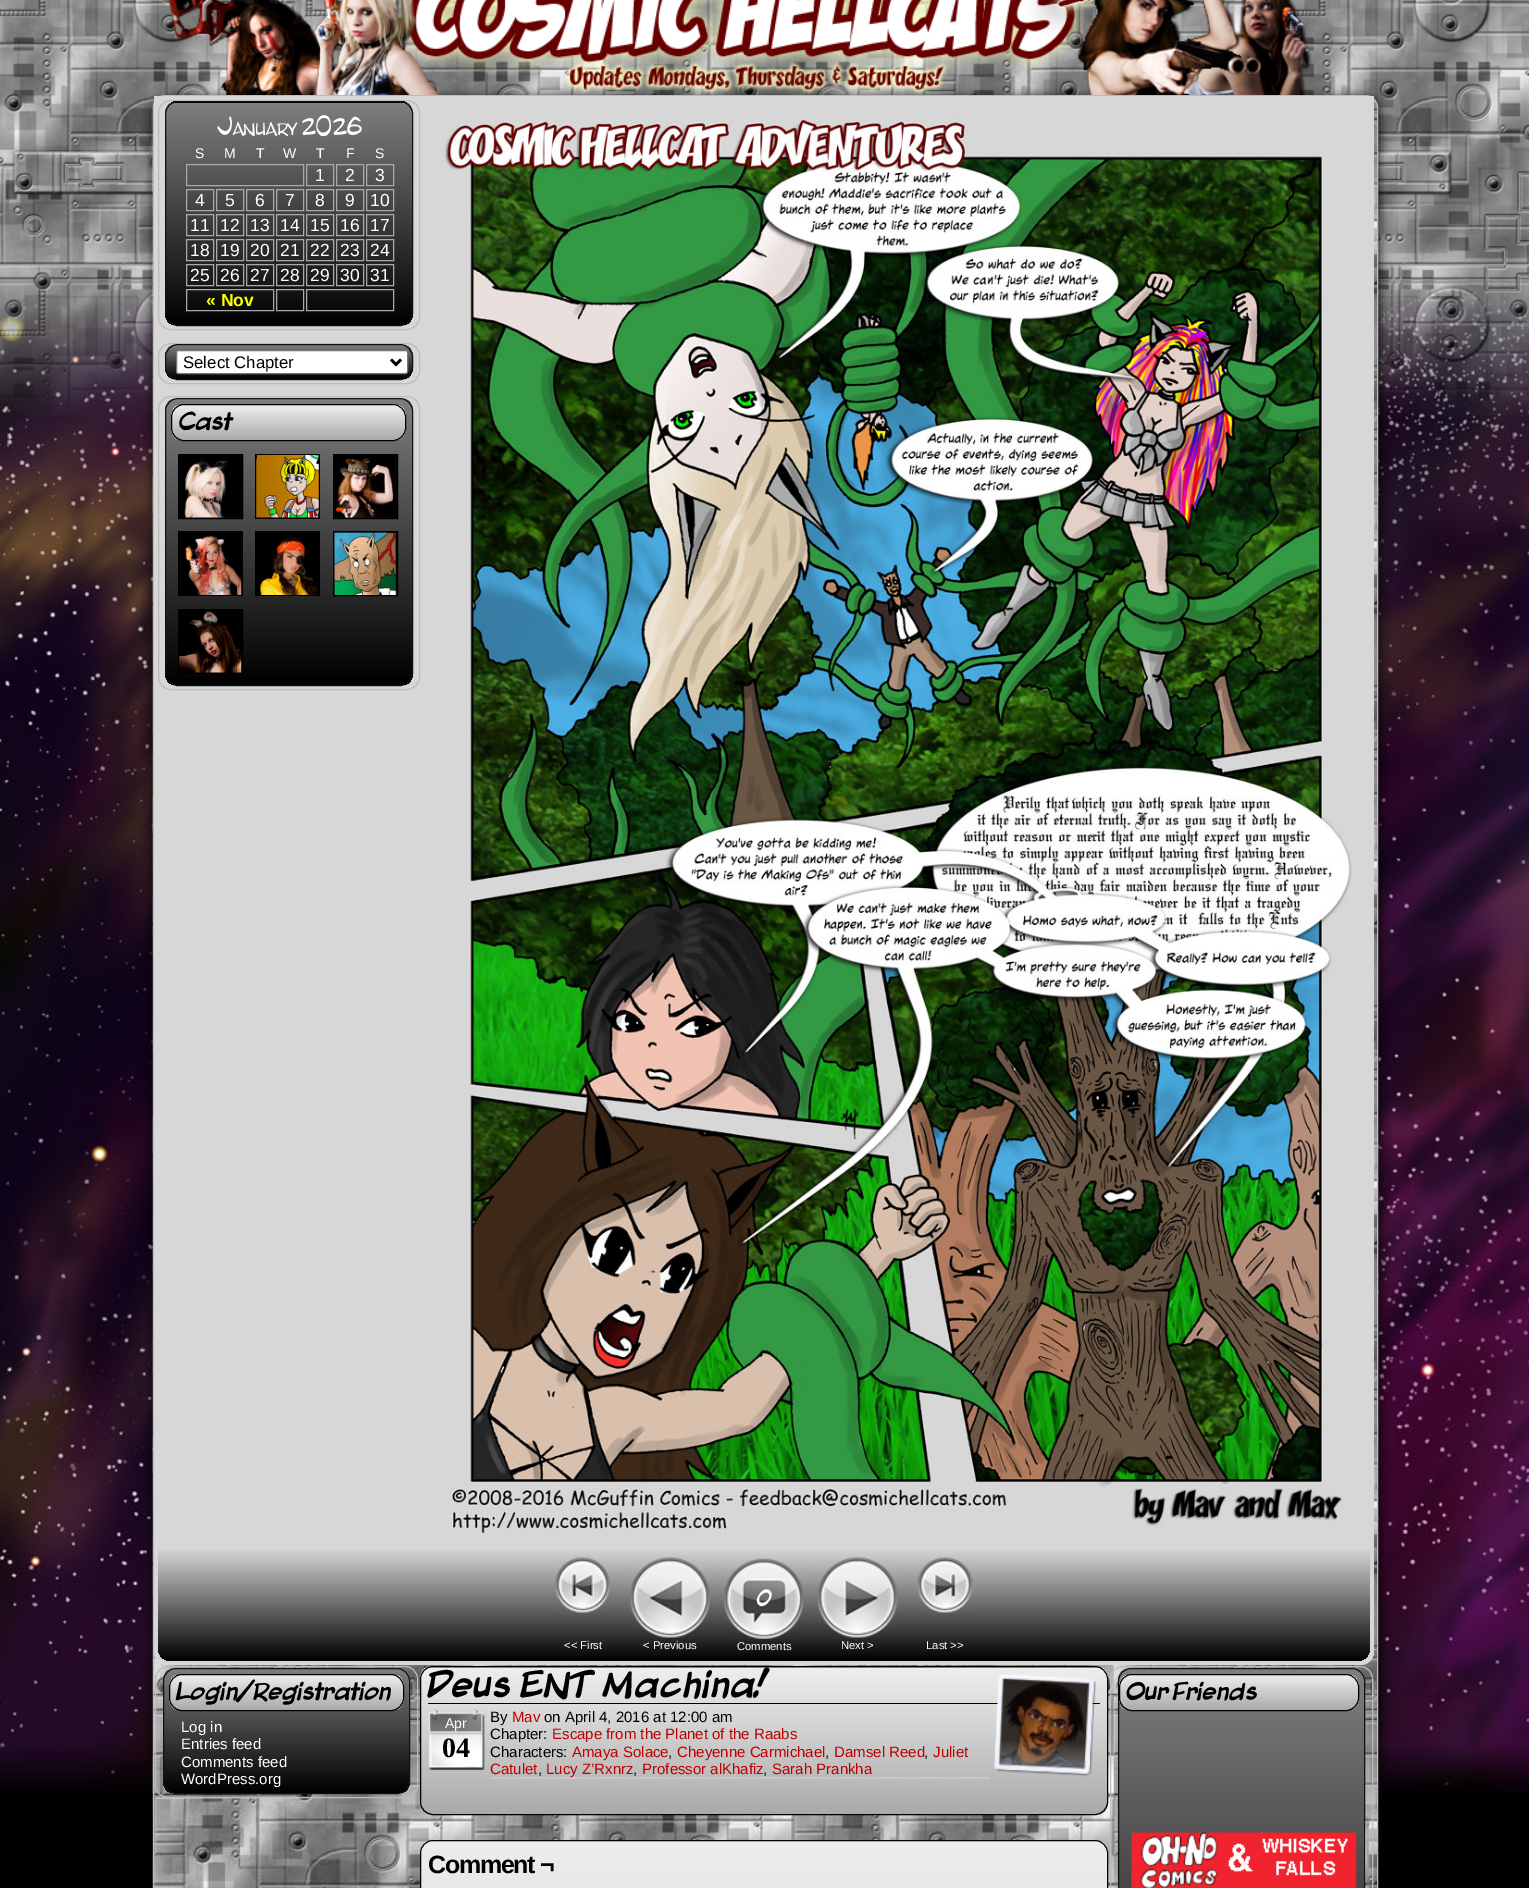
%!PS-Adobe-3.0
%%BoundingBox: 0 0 1529 1888
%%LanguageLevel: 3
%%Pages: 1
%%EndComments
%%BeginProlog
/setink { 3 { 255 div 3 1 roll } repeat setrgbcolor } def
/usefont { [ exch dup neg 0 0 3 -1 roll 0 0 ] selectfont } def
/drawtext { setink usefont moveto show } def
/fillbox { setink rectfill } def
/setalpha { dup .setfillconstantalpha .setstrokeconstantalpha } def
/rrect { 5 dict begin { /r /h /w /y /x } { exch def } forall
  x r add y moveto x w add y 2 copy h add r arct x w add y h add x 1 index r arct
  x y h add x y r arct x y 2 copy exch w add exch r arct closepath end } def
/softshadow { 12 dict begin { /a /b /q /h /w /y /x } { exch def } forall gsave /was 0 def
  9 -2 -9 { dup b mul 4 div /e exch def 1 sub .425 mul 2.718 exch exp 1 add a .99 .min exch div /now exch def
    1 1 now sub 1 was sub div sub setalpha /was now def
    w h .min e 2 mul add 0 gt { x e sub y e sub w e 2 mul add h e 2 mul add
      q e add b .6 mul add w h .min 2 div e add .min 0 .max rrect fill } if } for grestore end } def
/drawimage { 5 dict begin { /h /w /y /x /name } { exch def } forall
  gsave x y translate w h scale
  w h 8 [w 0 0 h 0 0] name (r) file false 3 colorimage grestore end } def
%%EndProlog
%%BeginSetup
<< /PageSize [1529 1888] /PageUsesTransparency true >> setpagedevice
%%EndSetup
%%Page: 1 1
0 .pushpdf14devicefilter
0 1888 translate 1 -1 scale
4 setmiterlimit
0 0 1529 1888 0 0 0 fillbox
(assets/img1.rgb) 0 269 1529 1528 drawimage
(assets/img2.rgb) 0 0 1529 416 drawimage
154 98 1225 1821 13 6 1 softshadow
(assets/img3.rgb) 168 0 1144 95 drawimage
(assets/img4.rgb) 152 95 1226 1793 drawimage
187 187 187 setink
153.5 95.5 1224 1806 12.5 rrect stroke
215 215 215 setink
154 96 moveto 1374 96 lineto 1374 1652 lineto 1374 1659 1368 1665 1361 1665 curveto 167 1665 lineto 160 1665 154 1659 154 1652 curveto closepath fill
187 187 187 setink
158.5 100.5 261 229 12.5 rrect stroke
gsave
165 101 248 225 13 rrect clip newpath
gsave 165 101 moveto 413 101 lineto 413 103 lineto 165 103 lineto closepath clip newpath
<< /ShadingType 2 /ColorSpace /DeviceRGB /Coords [166 -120 166 103] /Extend [true true] /Function << /FunctionType 2 /Domain [0 1] /C0 [0.498 0.498 0.498] /C1 [0 0 0] /N 1 >> >> shfill grestore
gsave 165 103 moveto 413 103 lineto 413 325 lineto 165 325 lineto closepath clip newpath
<< /ShadingType 2 /ColorSpace /DeviceRGB /Coords [166 103 166 325] /Extend [true true] /Function << /FunctionType 2 /Domain [0 1] /C0 [0.498 0.498 0.498] /C1 [0 0 0] /N 1 >> >> shfill grestore
grestore
17 17 17 setink
165.5 101.5 247 224 12.5 rrect stroke
/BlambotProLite-Regular 22.5 usefont
255 255 255 setink
216 135 moveto -1.25 0 (J) ashow
/BlambotProLite-Regular 15.75 usefont
232 135 moveto -1.25 0 (ANUARY) ashow
/BlambotProLite-Regular 22.5 usefont
301 135 moveto -1.25 0 (2026) ashow
(S) 195 158 /LiberationSans-Regular 14 255 255 255 drawtext
(M) 224 158 /LiberationSans-Regular 14 255 255 255 drawtext
(T) 256 158 /LiberationSans-Regular 14 255 255 255 drawtext
(W) 283 158 /LiberationSans-Regular 14 255 255 255 drawtext
(T) 316 158 /LiberationSans-Regular 14 255 255 255 drawtext
(F) 346 158 /LiberationSans-Regular 14 255 255 255 drawtext
(S) 375 158 /LiberationSans-Regular 14 255 255 255 drawtext
170 170 170 setink
186.5 164.5 117 21 rectstroke
306.5 164.5 27 21 rectstroke
(1) 315 181 /LiberationSans-Regular 17.5 255 255 255 drawtext
170 170 170 setink
336.5 164.5 27 21 rectstroke
(2) 345 181 /LiberationSans-Regular 17.5 255 255 255 drawtext
170 170 170 setink
366.5 164.5 27 21 rectstroke
(3) 375 181 /LiberationSans-Regular 17.5 255 255 255 drawtext
170 170 170 setink
186.5 189.5 27 21 rectstroke
(4) 195 206 /LiberationSans-Regular 17.5 255 255 255 drawtext
170 170 170 setink
216.5 189.5 27 21 rectstroke
(5) 225 206 /LiberationSans-Regular 17.5 255 255 255 drawtext
170 170 170 setink
246.5 189.5 27 21 rectstroke
(6) 255 206 /LiberationSans-Regular 17.5 255 255 255 drawtext
170 170 170 setink
276.5 189.5 27 21 rectstroke
(7) 285 206 /LiberationSans-Regular 17.5 255 255 255 drawtext
170 170 170 setink
306.5 189.5 27 21 rectstroke
(8) 315 206 /LiberationSans-Regular 17.5 255 255 255 drawtext
170 170 170 setink
336.5 189.5 27 21 rectstroke
(9) 345 206 /LiberationSans-Regular 17.5 255 255 255 drawtext
170 170 170 setink
366.5 189.5 27 21 rectstroke
(10) 370 206 /LiberationSans-Regular 17.5 255 255 255 drawtext
170 170 170 setink
186.5 214.5 27 21 rectstroke
(11) 190 231 /LiberationSans-Regular 17.5 255 255 255 drawtext
170 170 170 setink
216.5 214.5 27 21 rectstroke
(12) 220 231 /LiberationSans-Regular 17.5 255 255 255 drawtext
170 170 170 setink
246.5 214.5 27 21 rectstroke
(13) 250 231 /LiberationSans-Regular 17.5 255 255 255 drawtext
170 170 170 setink
276.5 214.5 27 21 rectstroke
(14) 280 231 /LiberationSans-Regular 17.5 255 255 255 drawtext
170 170 170 setink
306.5 214.5 27 21 rectstroke
(15) 310 231 /LiberationSans-Regular 17.5 255 255 255 drawtext
170 170 170 setink
336.5 214.5 27 21 rectstroke
(16) 340 231 /LiberationSans-Regular 17.5 255 255 255 drawtext
170 170 170 setink
366.5 214.5 27 21 rectstroke
(17) 370 231 /LiberationSans-Regular 17.5 255 255 255 drawtext
170 170 170 setink
186.5 239.5 27 21 rectstroke
(18) 190 256 /LiberationSans-Regular 17.5 255 255 255 drawtext
170 170 170 setink
216.5 239.5 27 21 rectstroke
(19) 220 256 /LiberationSans-Regular 17.5 255 255 255 drawtext
170 170 170 setink
246.5 239.5 27 21 rectstroke
(20) 250 256 /LiberationSans-Regular 17.5 255 255 255 drawtext
170 170 170 setink
276.5 239.5 27 21 rectstroke
(21) 280 256 /LiberationSans-Regular 17.5 255 255 255 drawtext
170 170 170 setink
306.5 239.5 27 21 rectstroke
(22) 310 256 /LiberationSans-Regular 17.5 255 255 255 drawtext
170 170 170 setink
336.5 239.5 27 21 rectstroke
(23) 340 256 /LiberationSans-Regular 17.5 255 255 255 drawtext
170 170 170 setink
366.5 239.5 27 21 rectstroke
(24) 370 256 /LiberationSans-Regular 17.5 255 255 255 drawtext
170 170 170 setink
186.5 264.5 27 21 rectstroke
(25) 190 281 /LiberationSans-Regular 17.5 255 255 255 drawtext
170 170 170 setink
216.5 264.5 27 21 rectstroke
(26) 220 281 /LiberationSans-Regular 17.5 255 255 255 drawtext
170 170 170 setink
246.5 264.5 27 21 rectstroke
(27) 250 281 /LiberationSans-Regular 17.5 255 255 255 drawtext
170 170 170 setink
276.5 264.5 27 21 rectstroke
(28) 280 281 /LiberationSans-Regular 17.5 255 255 255 drawtext
170 170 170 setink
306.5 264.5 27 21 rectstroke
(29) 310 281 /LiberationSans-Regular 17.5 255 255 255 drawtext
170 170 170 setink
336.5 264.5 27 21 rectstroke
(30) 340 281 /LiberationSans-Regular 17.5 255 255 255 drawtext
170 170 170 setink
366.5 264.5 27 21 rectstroke
(31) 370 281 /LiberationSans-Regular 17.5 255 255 255 drawtext
170 170 170 setink
186.5 289.5 87 21 rectstroke
(« Nov) 206 306 /LiberationSans-Bold 17.5 252 255 0 drawtext
170 170 170 setink
276.5 289.5 27 21 rectstroke
306.5 289.5 87 21 rectstroke
187 187 187 setink
158.5 343.5 261 40 12.5 rrect stroke
gsave
165 344 248 36 13 rrect clip newpath
gsave 165 345 moveto 413 345 lineto 413 379 lineto 165 379 lineto closepath clip newpath
<< /ShadingType 2 /ColorSpace /DeviceRGB /Coords [166 345 166 379] /Extend [true true] /Function << /FunctionType 2 /Domain [0 1] /C0 [0.498 0.498 0.498] /C1 [0 0 0] /N 1 >> >> shfill grestore
grestore
17 17 17 setink
165.5 344.5 247 35 12.5 rrect stroke
255 255 255 setink
176.5 350.5 231 23 2 rrect gsave fill grestore
118 118 118 setink
stroke
0 0 0 setink
2.5 setlinewidth
391 359.5 moveto 396 364.5 lineto 401 359.5 lineto stroke
(Select Chapter) 183 368 /LiberationSans-Regular 16.75 0 0 0 drawtext
187 187 187 setink
1 setlinewidth
158.5 396.5 261 293 12.5 rrect stroke
gsave
165 398 248 288 13 rrect clip newpath
gsave 165 399 moveto 413 399 lineto 413 685 lineto 165 685 lineto closepath clip newpath
<< /ShadingType 2 /ColorSpace /DeviceRGB /Coords [166 399 166 685] /Extend [true true] /Function << /FunctionType 2 /Domain [0 1] /C0 [0.498 0.498 0.498] /C1 [0 0 0] /N 1 >> >> shfill grestore
grestore
17 17 17 setink
165.5 398.5 247 287 12.5 rrect stroke
gsave
171 404 235 37 13 rrect clip newpath
gsave 171 405 moveto 406 405 lineto 406 440 lineto 171 440 lineto closepath clip newpath
<< /ShadingType 2 /ColorSpace /DeviceRGB /Coords [173 405 173 440] /Extend [true true] /Function << /FunctionType 2 /Domain [0 1] /C0 [0.933 0.933 0.933] /C1 [0.667 0.667 0.667] /N 1 >> >> shfill grestore
grestore
0 0 0 setink
171.5 404.5 234 36 12.5 rrect stroke
/BlambotProLite-Bold 20 usefont
179 429 moveto -1.25 0 (Cast) ashow
179 455 63 63 0 0 0 fillbox
(assets/img5.rgb) 179 455 63 63 drawimage
178.5 454.5 64 64 rectstroke
255 454 65 65 0 0 0 fillbox
(assets/img6.rgb) 256 455 63 63 drawimage
334 455 63 63 0 0 0 fillbox
(assets/img7.rgb) 334 455 63 63 drawimage
333.5 454.5 64 64 rectstroke
178 531 65 65 0 0 0 fillbox
(assets/img8.rgb) 185 534 57 61 drawimage
255 531 65 65 0 0 0 fillbox
(assets/img9.rgb) 259 536 60 59 drawimage
334 532 63 63 0 0 0 fillbox
(assets/img10.rgb) 334 532 63 63 drawimage
333.5 531.5 64 64 rectstroke
179 610 63 63 0 0 0 fillbox
(assets/img11.rgb) 179 610 63 63 drawimage
178.5 609.5 64 64 rectstroke
(assets/img12.rgb) 444 115 908 1419 drawimage
gsave 158 1548 moveto 1370 1548 lineto 1370 1648 lineto 1370 1655 1364 1661 1357 1661 curveto 171 1661 lineto 164 1661 158 1655 158 1648 curveto closepath clip newpath
<< /ShadingType 2 /ColorSpace /DeviceRGB /Coords [764 1548 764 1661] /Extend [true true] /Function << /FunctionType 2 /Domain [0 1] /C0 [0.843 0.843 0.843] /C1 [0 0 0] /N 1 >> >> shfill grestore
(assets/img13.rgb) 555 1557 55 56 drawimage
(<< First) 564 1649 /LiberationSans-Regular 11.25 255 255 255 drawtext
(assets/img14.rgb) 630 1557 80 81 drawimage
(< Previous) 643 1649 /LiberationSans-Regular 11.25 255 255 255 drawtext
(assets/img15.rgb) 723 1558 81 81 drawimage
(0) 756 1606 /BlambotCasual-Bold 20 255 255 255 drawtext
(Comments) 737 1650 /LiberationSans-Regular 11.25 255 255 255 drawtext
(assets/img16.rgb) 817 1557 81 81 drawimage
(Next >) 841 1649 /LiberationSans-Regular 11.25 255 255 255 drawtext
(assets/img17.rgb) 917 1557 56 56 drawimage
(Last >>) 926 1649 /LiberationSans-Regular 11.25 255 255 255 drawtext
187 187 187 setink
155.5 1666.5 262 131 12.5 rrect stroke
gsave
163 1668 247 126 13 rrect clip newpath
gsave 163 1669 moveto 410 1669 lineto 410 1793 lineto 163 1793 lineto closepath clip newpath
<< /ShadingType 2 /ColorSpace /DeviceRGB /Coords [164 1669 164 1793] /Extend [true true] /Function << /FunctionType 2 /Domain [0 1] /C0 [0.498 0.498 0.498] /C1 [0 0 0] /N 1 >> >> shfill grestore
grestore
17 17 17 setink
163.5 1668.5 246 125 12.5 rrect stroke
gsave
169 1674 235 37 13 rrect clip newpath
gsave 169 1675 moveto 404 1675 lineto 404 1710 lineto 169 1710 lineto closepath clip newpath
<< /ShadingType 2 /ColorSpace /DeviceRGB /Coords [170 1675 170 1710] /Extend [true true] /Function << /FunctionType 2 /Domain [0 1] /C0 [0.933 0.933 0.933] /C1 [0.667 0.667 0.667] /N 1 >> >> shfill grestore
grestore
0 0 0 setink
169.5 1674.5 234 36 12.5 rrect stroke
/BlambotProLite-Bold 20 usefont
176 1699 moveto -1.25 0 (Login/Registration) ashow
(Log in) 181 1732 /LiberationSans-Regular 15 255 255 255 drawtext
(Entries feed) 181 1749 /LiberationSans-Regular 15 255 255 255 drawtext
(Comments feed) 181 1767 /LiberationSans-Regular 15 255 255 255 drawtext
(WordPress.org) 181 1784 /LiberationSans-Regular 15 255 255 255 drawtext
gsave
420 1666 688 149 13 rrect clip newpath
gsave 420 1666 moveto 1108 1666 lineto 1108 1668 lineto 420 1668 lineto closepath clip newpath
<< /ShadingType 2 /ColorSpace /DeviceRGB /Coords [421 1521 421 1668] /Extend [true true] /Function << /FunctionType 2 /Domain [0 1] /C0 [0.933 0.933 0.933] /C1 [0.667 0.667 0.667] /N 1 >> >> shfill grestore
gsave 420 1668 moveto 1108 1668 lineto 1108 1814 lineto 420 1814 lineto closepath clip newpath
<< /ShadingType 2 /ColorSpace /DeviceRGB /Coords [421 1668 421 1814] /Extend [true true] /Function << /FunctionType 2 /Domain [0 1] /C0 [0.933 0.933 0.933] /C1 [0.667 0.667 0.667] /N 1 >> >> shfill grestore
grestore
0 0 0 setink
420.5 1666.5 687 148 12.5 rrect stroke
428 1703 672 1 0 0 0 fillbox
/BlambotProLite-Bold 30 usefont
428 1696 moveto -1.25 0 (Deus ENT Machina!) ashow
(assets/img18.rgb) 428 1708 58 62 drawimage
(Apr) 445 1728 /LiberationSans-Regular 14 255 255 255 drawtext
(04) 442 1757 /LiberationSerif-Bold 28 0 0 0 drawtext
221 221 221 setink
1.2 setlinewidth
[1.25 1.25] 0 setdash
490 1778 moveto 990 1778 lineto stroke
(By) 490 1722 /LiberationSans-Regular 15 0 0 0 drawtext
(Mav) 512 1722 /LiberationSans-Regular 15 187 0 0 drawtext
(on April 4, 2016 at 12:00 am) 544 1722 /LiberationSans-Regular 15 0 0 0 drawtext
(Chapter:) 490 1739 /LiberationSans-Regular 15 0 0 0 drawtext
(Escape from the Planet of the Raabs) 552 1739 /LiberationSans-Regular 15 187 0 0 drawtext
(Characters:) 490 1757 /LiberationSans-Regular 15 0 0 0 drawtext
(Amaya Solace) 572 1757 /LiberationSans-Regular 15 187 0 0 drawtext
(,) 668 1757 /LiberationSans-Regular 15 0 0 0 drawtext
(Cheyenne Carmichael) 677 1757 /LiberationSans-Regular 15 187 0 0 drawtext
(,) 825 1757 /LiberationSans-Regular 15 0 0 0 drawtext
(Damsel Reed) 834 1757 /LiberationSans-Regular 15 187 0 0 drawtext
(,) 924 1757 /LiberationSans-Regular 15 0 0 0 drawtext
(Juliet) 933 1757 /LiberationSans-Regular 15 187 0 0 drawtext
(Catulet) 490 1774 /LiberationSans-Regular 15 187 0 0 drawtext
(,) 538 1774 /LiberationSans-Regular 15 0 0 0 drawtext
(Lucy Z’Rxnrz) 546 1774 /LiberationSans-Regular 15 187 0 0 drawtext
(,) 633 1774 /LiberationSans-Regular 15 0 0 0 drawtext
(Professor alKhafiz) 642 1774 /LiberationSans-Regular 15 187 0 0 drawtext
(,) 763 1774 /LiberationSans-Regular 15 0 0 0 drawtext
(Sarah Prankha) 772 1774 /LiberationSans-Regular 15 187 0 0 drawtext
(assets/img19.rgb) 993 1674 104 103 drawimage
gsave
420 1840 688 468 13 rrect clip newpath
gsave 420 1841 moveto 1108 1841 lineto 1108 1888 lineto 420 1888 lineto closepath clip newpath
<< /ShadingType 2 /ColorSpace /DeviceRGB /Coords [421 1841 421 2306] /Extend [true true] /Function << /FunctionType 2 /Domain [0 1] /C0 [0.933 0.933 0.933] /C1 [0.667 0.667 0.667] /N 1 >> >> shfill grestore
grestore
0 0 0 setink
1 setlinewidth
[] 0 setdash
420.5 1840.5 687 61 12.5 rrect stroke
/LiberationSans-Bold 25 usefont
428 1873 moveto -1.25 0 (Comment ¬) ashow
187 187 187 setink
1110.5 1666.5 262 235 12.5 rrect stroke
gsave
1118 1668 247 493 13 rrect clip newpath
gsave 1118 1669 moveto 1365 1669 lineto 1365 1888 lineto 1118 1888 lineto closepath clip newpath
<< /ShadingType 2 /ColorSpace /DeviceRGB /Coords [1119 1669 1119 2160] /Extend [true true] /Function << /FunctionType 2 /Domain [0 1] /C0 [0.498 0.498 0.498] /C1 [0 0 0] /N 1 >> >> shfill grestore
grestore
17 17 17 setink
1118.5 1668.5 246 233 12.5 rrect stroke
gsave
1119 1674 240 37 13 rrect clip newpath
gsave 1119 1675 moveto 1359 1675 lineto 1359 1710 lineto 1119 1710 lineto closepath clip newpath
<< /ShadingType 2 /ColorSpace /DeviceRGB /Coords [1120 1675 1120 1710] /Extend [true true] /Function << /FunctionType 2 /Domain [0 1] /C0 [0.933 0.933 0.933] /C1 [0.667 0.667 0.667] /N 1 >> >> shfill grestore
grestore
0 0 0 setink
1119.5 1674.5 239 36 12.5 rrect stroke
/BlambotProLite-Bold 20 usefont
1126 1699 moveto -1.25 0 (Our Friends) ashow
(assets/img20.rgb) 1131 1832 226 56 drawimage
.poppdf14devicefilter showpage
%%EOF
